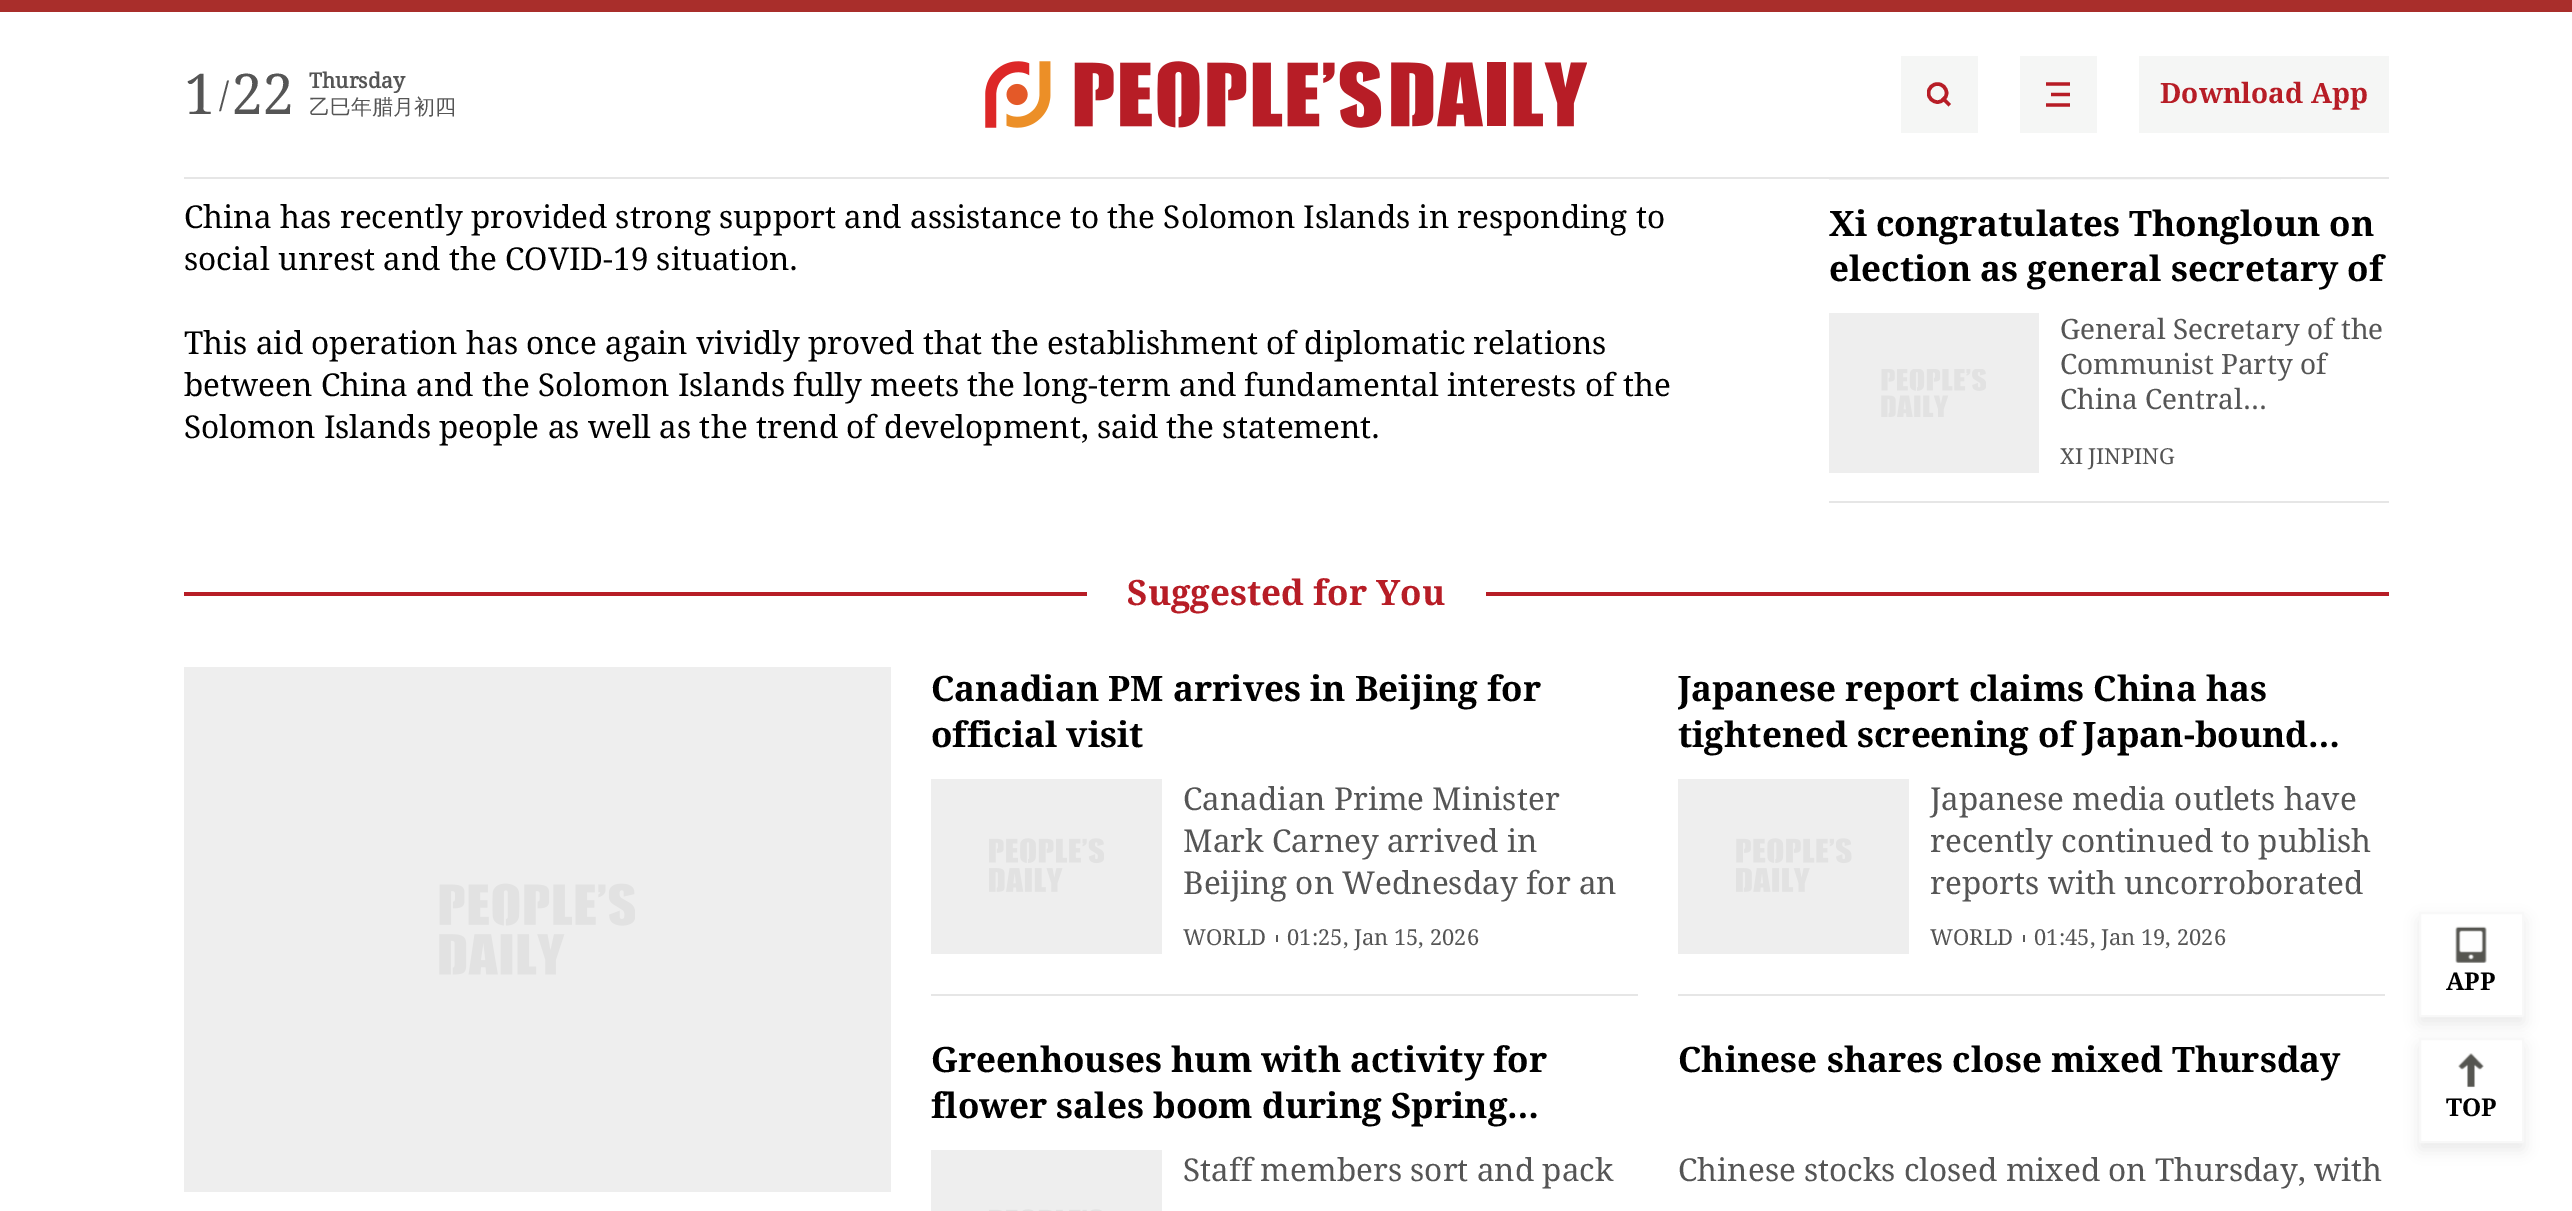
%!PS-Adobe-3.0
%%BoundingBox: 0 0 2572 1211
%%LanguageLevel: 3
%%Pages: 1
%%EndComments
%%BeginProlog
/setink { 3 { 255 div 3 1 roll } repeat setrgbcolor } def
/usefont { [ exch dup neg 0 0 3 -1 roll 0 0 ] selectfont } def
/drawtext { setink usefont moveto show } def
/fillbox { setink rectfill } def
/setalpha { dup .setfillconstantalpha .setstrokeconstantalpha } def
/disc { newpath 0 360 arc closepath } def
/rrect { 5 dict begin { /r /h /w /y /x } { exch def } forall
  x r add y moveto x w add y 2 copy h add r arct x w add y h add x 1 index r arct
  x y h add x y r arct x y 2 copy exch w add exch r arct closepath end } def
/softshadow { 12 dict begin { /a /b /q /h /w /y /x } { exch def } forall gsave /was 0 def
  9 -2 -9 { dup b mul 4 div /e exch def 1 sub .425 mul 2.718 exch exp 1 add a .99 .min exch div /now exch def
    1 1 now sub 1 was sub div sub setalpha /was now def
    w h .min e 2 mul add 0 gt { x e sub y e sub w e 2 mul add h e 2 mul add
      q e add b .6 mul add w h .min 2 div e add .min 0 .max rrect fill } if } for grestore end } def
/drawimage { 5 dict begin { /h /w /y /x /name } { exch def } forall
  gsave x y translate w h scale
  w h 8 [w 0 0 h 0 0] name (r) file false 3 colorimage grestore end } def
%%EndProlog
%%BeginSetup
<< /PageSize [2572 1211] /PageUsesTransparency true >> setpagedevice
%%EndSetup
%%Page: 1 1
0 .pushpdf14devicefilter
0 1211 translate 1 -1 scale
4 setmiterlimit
0 0 2572 1211 255 255 255 fillbox
0 0 2572 12 169 46 43 fillbox
184 177 2205 2 230 230 230 fillbox
(1) 184 114 /DroidSerif-Regular 56 85 85 85 drawtext
(/) 219 107 /DroidSerif-Regular 35 85 85 85 drawtext
(22) 232 114 /DroidSerif-Regular 56 85 85 85 drawtext
(Thursday) 309 88 /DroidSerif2-Bold 21 85 85 85 drawtext
(乙巳年腊月初四) 309 114 /WenQuanYiZenHei-Medium 21 85 85 85 drawtext
(assets/img1.rgb) 985 61 602 67 drawimage
1901 56 77 77 245 246 245 fillbox
gsave
1927 82 24 25 rectclip
183 29 38 setink
3.5 setlinewidth
1937.5 93 9 disc stroke
grestore
183 29 38 setink
1941 99 moveto 1943.5 96.5 lineto 1951 104 lineto 1948.5 106.5 lineto closepath fill
2020 56 77 77 245 246 245 fillbox
(assets/img2.rgb) 2046 82 24 25 drawimage
2139 56 250 77 245 246 245 fillbox
(Download App) 2160 103 /DroidSerif-Bold 28 183 29 38 drawtext
(China has recently provided strong support and assistance to the Solomon Islands in responding to) 184 228 /DroidSerif-Regular 31.5 0 0 0 drawtext
(social unrest and the COVID-19 situation.) 184 270 /DroidSerif-Regular 31.5 0 0 0 drawtext
(This aid operation has once again vividly proved that the establishment of diplomatic relations) 184 354 /DroidSerif-Regular 31.5 0 0 0 drawtext
(between China and the Solomon Islands fully meets the long-term and fundamental interests of the) 184 396 /DroidSerif-Regular 31.5 0 0 0 drawtext
(Solomon Islands people as well as the trend of development, said the statement.) 184 438 /DroidSerif-Regular 31.5 0 0 0 drawtext
1829 501 560 2 230 230 230 fillbox
gsave 1829 179 moveto 2281 179 lineto 2281 180 lineto 1829 180 lineto closepath clip newpath
<< /ShadingType 2 /ColorSpace /DeviceRGB /Coords [2389 156 1829 156] /Extend [true true] /Function << /FunctionType 2 /Domain [0 1] /C0 [1 1 1] /C1 [0.949 0.949 0.949] /N 1 >> >> shfill grestore
(Xi congratulates Thongloun on) 1829 236 /DroidSerif-Bold 35 0 0 0 drawtext
(election as general secretary of) 1829 281 /DroidSerif-Bold 35 0 0 0 drawtext
1829 313 210 160 238 238 238 fillbox
(assets/img3.rgb) 1881 369 105 48 drawimage
(General Secretary of the) 2060 339 /DroidSerif-Regular 28 85 85 85 drawtext
(Communist Party of) 2060 374 /DroidSerif-Regular 28 85 85 85 drawtext
(China Central…) 2060 409 /DroidSerif-Regular 28 85 85 85 drawtext
(XI JINPING) 2060 464 /DroidSerif-Regular 22 85 85 85 drawtext
184 592 2205 4 183 29 38 fillbox
1087 592 399 4 255 255 255 fillbox
(Suggested for You) 1127 605 /DroidSerif-Bold 35 183 29 38 drawtext
184 667 707 525 238 238 238 fillbox
(assets/img4.rgb) 439 883 196 92 drawimage
931 994 707 2 230 230 230 fillbox
(Canadian PM arrives in Beijing for) 931 701 /DroidSerif-Bold 35 0 0 0 drawtext
(official visit) 931 747 /DroidSerif-Bold 35 0 0 0 drawtext
931 779 231 175 238 238 238 fillbox
(assets/img5.rgb) 989 838 115 54 drawimage
(Canadian Prime Minister) 1183 810 /DroidSerif-Regular 31.5 85 85 85 drawtext
(Mark Carney arrived in) 1183 852 /DroidSerif-Regular 31.5 85 85 85 drawtext
(Beijing on Wednesday for an) 1183 894 /DroidSerif-Regular 31.5 85 85 85 drawtext
(WORLD) 1183 945 /DroidSerif-Regular 22 85 85 85 drawtext
1276 935 2 7 90 90 90 fillbox
(01:25, Jan 15, 2026) 1287 945 /DroidSerif-Regular 22 85 85 85 drawtext
1678 994 707 2 230 230 230 fillbox
gsave
1678 667 707 91 rectclip
(Japanese report claims China has) 1678 701 /DroidSerif-Bold 35 0 0 0 drawtext
grestore
(tightened screening of Japan-bound…) 1678 747 /DroidSerif-Bold 35 0 0 0 drawtext
1678 779 231 175 238 238 238 fillbox
(assets/img6.rgb) 1736 838 116 54 drawimage
(Japanese media outlets have) 1930 810 /DroidSerif-Regular 31.5 85 85 85 drawtext
(recently continued to publish) 1930 852 /DroidSerif-Regular 31.5 85 85 85 drawtext
(reports with uncorroborated) 1930 894 /DroidSerif-Regular 31.5 85 85 85 drawtext
(WORLD) 1930 945 /DroidSerif-Regular 22 85 85 85 drawtext
2023 935 2 7 90 90 90 fillbox
(01:45, Jan 19, 2026) 2034 945 /DroidSerif-Regular 22 85 85 85 drawtext
(Greenhouses hum with activity for) 931 1072 /DroidSerif-Bold 35 0 0 0 drawtext
(flower sales boom during Spring…) 931 1118 /DroidSerif-Bold 35 0 0 0 drawtext
931 1150 231 61 238 238 238 fillbox
(assets/img7.rgb) 989 1209 113 2 drawimage
(Staff members sort and pack) 1183 1181 /DroidSerif-Regular 31.5 85 85 85 drawtext
(Chinese shares close mixed Thursday) 1678 1072 /DroidSerif-Bold 35 0 0 0 drawtext
(Chinese stocks closed mixed on Thursday, with) 1678 1181 /DroidSerif-Regular 31.5 85 85 85 drawtext
0 0 0 setink
2419 919 105 105 2 7 0.08 softshadow
255 255 255 setink
2420 913 103 103 1 rrect gsave fill grestore
248 248 248 setink
2 setlinewidth
stroke
(assets/img8.rgb) 2455 926 32 37 drawimage
(APP) 2446 990 /DroidSerif-Bold 24.5 0 0 0 drawtext
2419 1045 105 105 2 7 0.08 softshadow
255 255 255 setink
2420 1039 103 103 1 rrect gsave fill grestore
248 248 248 setink
stroke
(assets/img9.rgb) 2458 1053 26 35 drawimage
(TOP) 2446 1116 /DroidSerif-Bold 24.5 0 0 0 drawtext
.poppdf14devicefilter showpage
%%EOF
